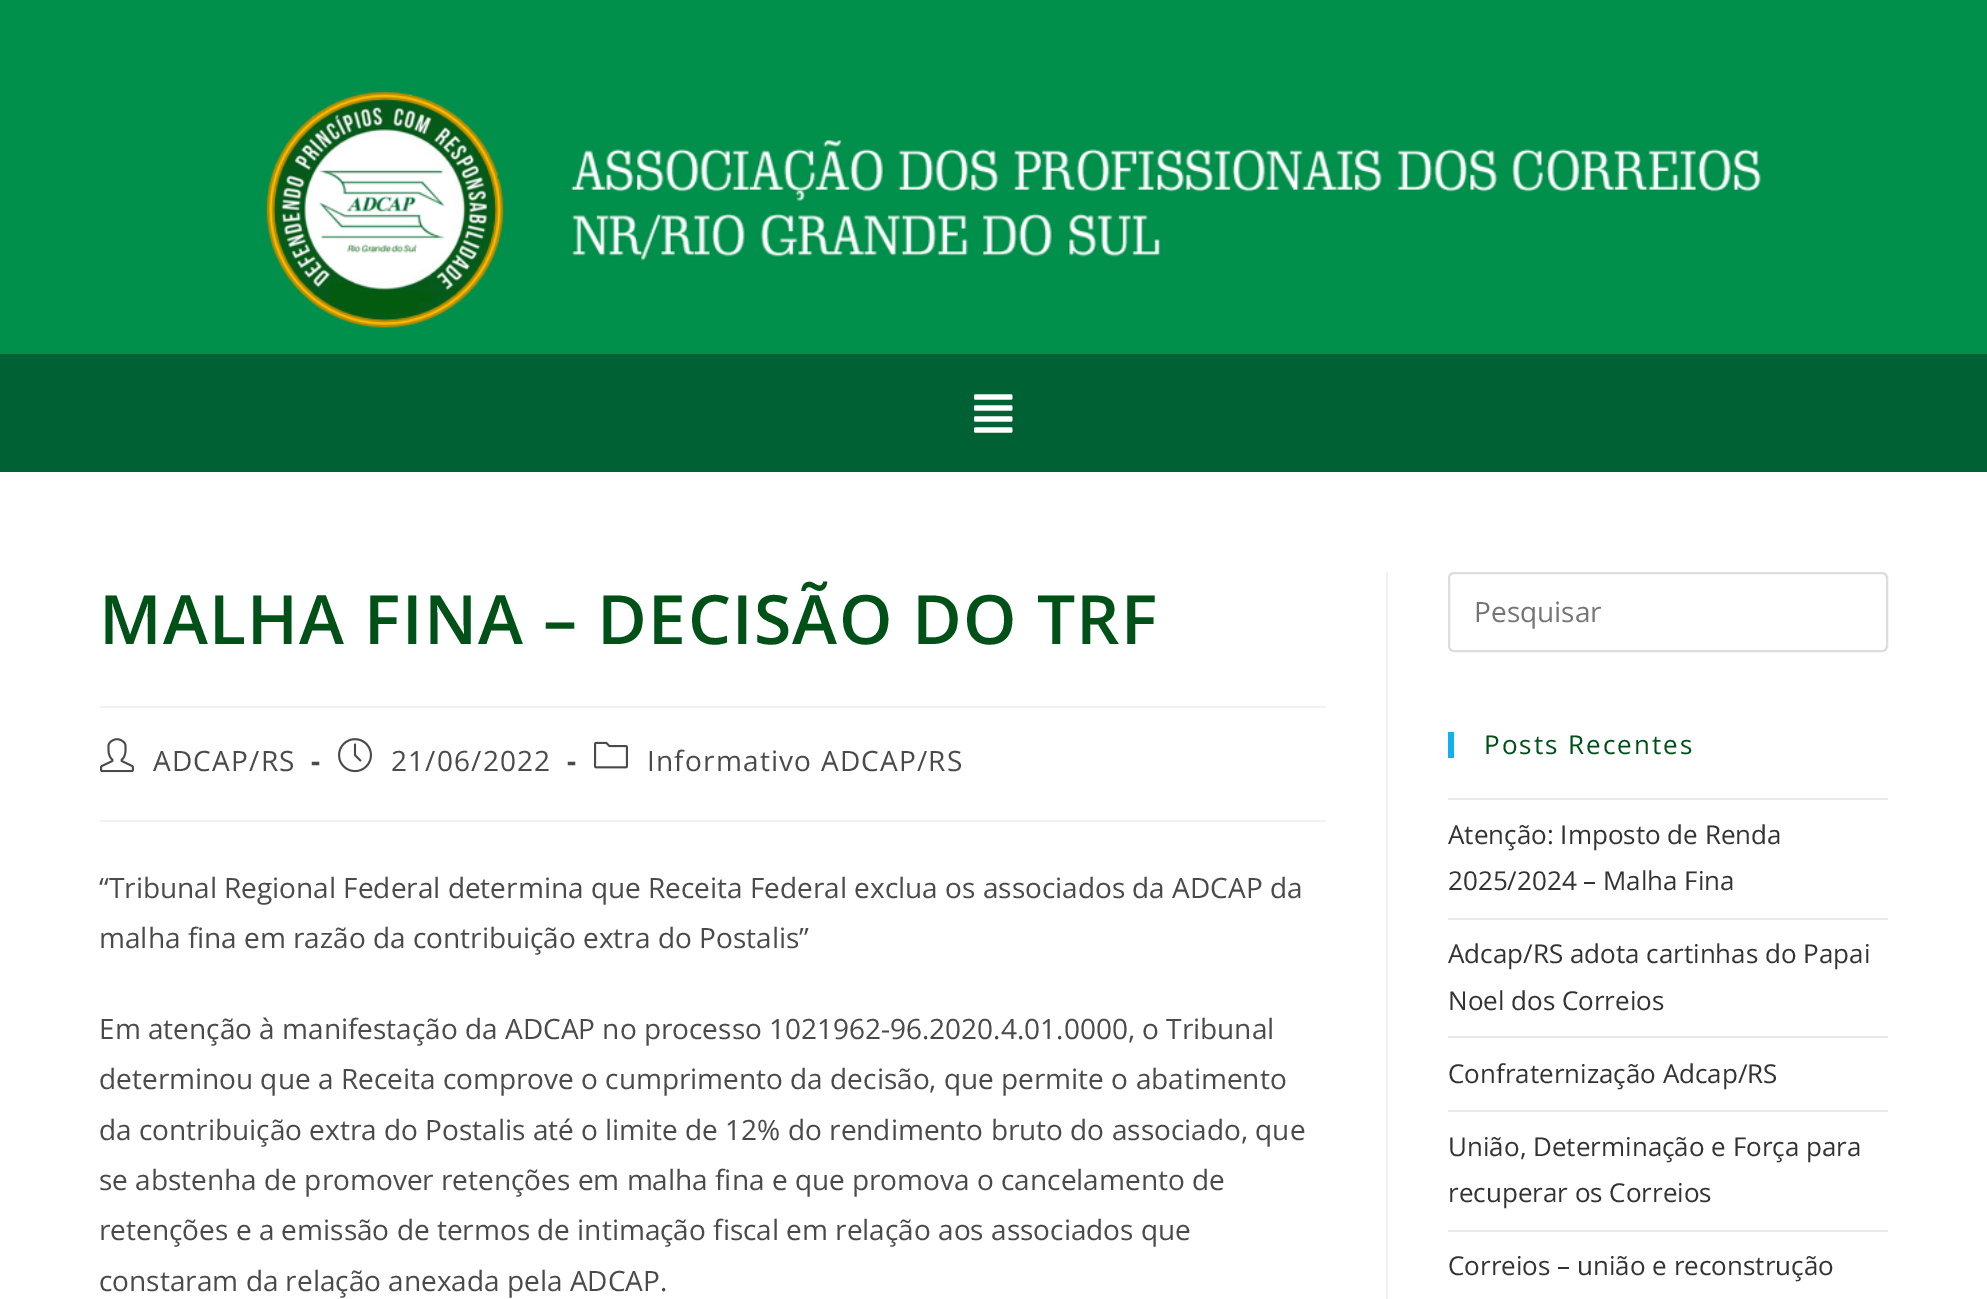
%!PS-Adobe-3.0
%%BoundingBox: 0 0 1987 1299
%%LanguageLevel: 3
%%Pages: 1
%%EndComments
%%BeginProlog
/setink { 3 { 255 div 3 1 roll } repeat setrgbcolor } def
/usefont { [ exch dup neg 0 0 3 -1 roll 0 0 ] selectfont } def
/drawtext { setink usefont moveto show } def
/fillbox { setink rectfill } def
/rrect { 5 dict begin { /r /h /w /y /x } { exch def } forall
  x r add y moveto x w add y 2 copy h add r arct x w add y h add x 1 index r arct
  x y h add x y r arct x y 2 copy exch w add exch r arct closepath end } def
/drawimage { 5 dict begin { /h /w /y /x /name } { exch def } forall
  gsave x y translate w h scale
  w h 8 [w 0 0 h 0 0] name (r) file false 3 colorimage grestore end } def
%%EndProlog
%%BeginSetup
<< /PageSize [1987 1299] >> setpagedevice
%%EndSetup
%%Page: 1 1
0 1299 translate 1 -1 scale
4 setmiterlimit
0 0 1987 1299 255 255 255 fillbox
0 0 1987 354 0 144 76 fillbox
(assets/img1.rgb) 266 91 1496 237 drawimage
0 354 1987 118 0 98 52 fillbox
(assets/img2.rgb) 974 394 39 39 drawimage
1386 572 2 727 241 241 241 fillbox
100 706 1226 2 241 241 241 fillbox
/OpenSans-SemiBold 68 usefont
0 81 24 setink
99 644 moveto 1.2 0 (MALHA FINA – DECISÃO DO TRF) ashow
100 820 1226 2 241 241 241 fillbox
(assets/img3.rgb) 100 738 34 35 drawimage
/OpenSans-Regular 28 usefont
74 74 74 setink
153 771 moveto 1.2 0 (ADCAP/RS) ashow
/OpenSans-Bold 28 usefont
311 771 moveto 1.2 0 (-) ashow
(assets/img4.rgb) 338 738 34 35 drawimage
/OpenSans-Regular 28 usefont
391 771 moveto 1.2 0 (21/06/2022) ashow
/OpenSans-Bold 28 usefont
567 771 moveto 1.2 0 (-) ashow
(assets/img5.rgb) 594 741 34 28 drawimage
/OpenSans-Regular 28 usefont
647 771 moveto 1.2 0 (Informativo ADCAP/RS) ashow
(“Tribunal Regional Federal determina que Receita Federal exclua os associados da ADCAP da) 99 898 /OpenSans-Regular 28 74 74 74 drawtext
(malha fina em razão da contribuição extra do Postalis”) 99 948 /OpenSans-Regular 28 74 74 74 drawtext
(Em atenção à manifestação da ADCAP no processo 1021962-96.2020.4.01.0000, o Tribunal) 99 1039 /OpenSans-Regular 28 74 74 74 drawtext
(determinou que a Receita comprove o cumprimento da decisão, que permite o abatimento) 99 1089 /OpenSans-Regular 28 74 74 74 drawtext
(da contribuição extra do Postalis até o limite de 12% do rendimento bruto do associado, que) 99 1140 /OpenSans-Regular 28 74 74 74 drawtext
(se abstenha de promover retenções em malha fina e que promova o cancelamento de) 99 1190 /OpenSans-Regular 28 74 74 74 drawtext
(retenções e a emissão de termos de intimação fiscal em relação aos associados que) 99 1240 /OpenSans-Regular 28 74 74 74 drawtext
(constaram da relação anexada pela ADCAP.) 99 1291 /OpenSans-Regular 28 74 74 74 drawtext
221 221 221 setink
2 setlinewidth
1449 573 438 78 5 rrect stroke
(Pesquisar) 1474 622 /OpenSans-Regular 28 117 117 117 drawtext
1448 732 6 26 19 175 240 fillbox
/OpenSans-Regular 26 usefont
0 81 24 setink
1484 754 moveto 2 0 (Posts Recentes) ashow
1448 798 440 2 233 233 233 fillbox
1448 918 440 2 233 233 233 fillbox
(Atenção: Imposto de Renda) 1448 844 /OpenSans-Regular 26 51 51 51 drawtext
(2025/2024 – Malha Fina) 1448 890 /OpenSans-Regular 26 51 51 51 drawtext
1448 1036 440 2 233 233 233 fillbox
(Adcap/RS adota cartinhas do Papai) 1448 963 /OpenSans-Regular 26 51 51 51 drawtext
(Noel dos Correios) 1448 1010 /OpenSans-Regular 26 51 51 51 drawtext
1448 1110 440 2 233 233 233 fillbox
(Confraternização Adcap/RS) 1448 1083 /OpenSans-Regular 26 51 51 51 drawtext
1448 1230 440 2 233 233 233 fillbox
(União, Determinação e Força para) 1448 1156 /OpenSans-Regular 26 51 51 51 drawtext
(recuperar os Correios) 1448 1202 /OpenSans-Regular 26 51 51 51 drawtext
(Correios – união e reconstrução) 1448 1275 /OpenSans-Regular 26 51 51 51 drawtext
showpage
%%EOF
